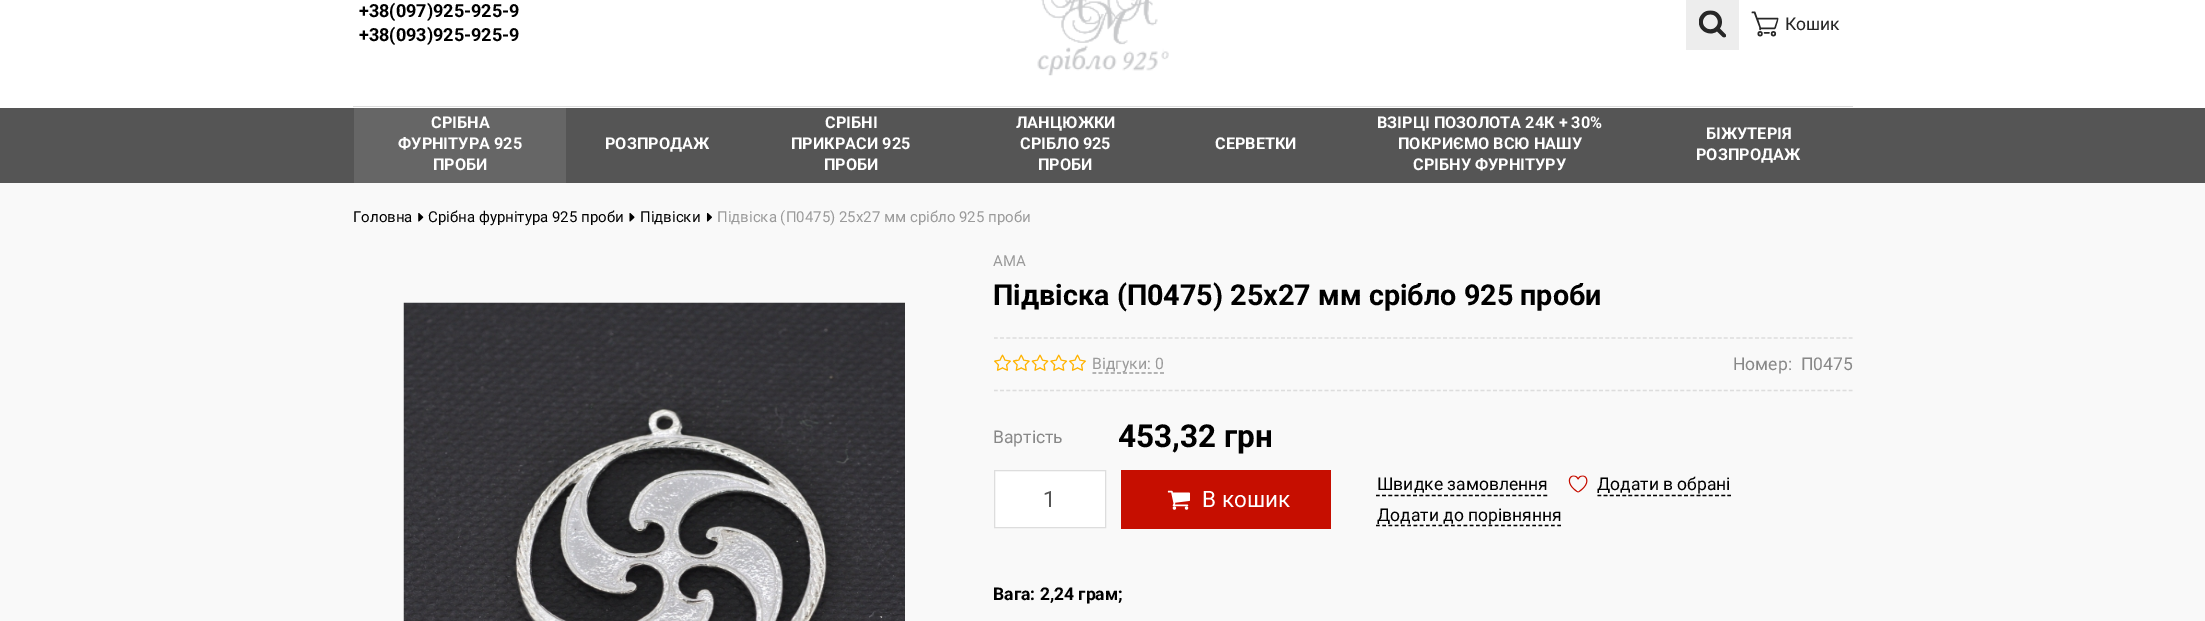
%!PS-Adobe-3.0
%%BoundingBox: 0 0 2205 621
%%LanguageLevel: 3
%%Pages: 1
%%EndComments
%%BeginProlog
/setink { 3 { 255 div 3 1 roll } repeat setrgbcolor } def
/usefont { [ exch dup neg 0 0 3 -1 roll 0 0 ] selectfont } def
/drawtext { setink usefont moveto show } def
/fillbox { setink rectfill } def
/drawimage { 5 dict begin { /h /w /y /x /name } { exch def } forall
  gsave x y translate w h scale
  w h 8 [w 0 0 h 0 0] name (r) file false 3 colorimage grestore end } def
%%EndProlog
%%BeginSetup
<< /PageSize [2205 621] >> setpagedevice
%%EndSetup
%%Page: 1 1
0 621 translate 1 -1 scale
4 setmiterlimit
0 0 2205 621 255 255 255 fillbox
353 106 1500 1 221 221 221 fillbox
(+38\(097\)925-925-9) 359 17 /Roboto-Bold 18 0 0 0 drawtext
(+38\(093\)925-925-9) 359 41 /Roboto-Bold 18 0 0 0 drawtext
(assets/img1.rgb) 1037 0 132 76 drawimage
1686 0 53 50 237 237 237 fillbox
(assets/img2.rgb) 1699 10 27 28 drawimage
(assets/img3.rgb) 1751 11 28 26 drawimage
(Кошик) 1785 30 /Roboto-Regular 17.5 39 39 39 drawtext
0 108 2205 75 85 85 85 fillbox
354 108 212 75 102 102 102 fillbox
(СРІБНА) 431 128 /Roboto-Bold 16.25 255 255 255 drawtext
(ФУРНІТУРА 925) 398 149 /Roboto-Bold 16.25 255 255 255 drawtext
(ПРОБИ) 433 170 /Roboto-Bold 16.25 255 255 255 drawtext
(РОЗПРОДАЖ) 605 149 /Roboto-Bold 16.25 255 255 255 drawtext
(СРІБНІ) 825 128 /Roboto-Bold 16.25 255 255 255 drawtext
(ПРИКРАСИ 925) 791 149 /Roboto-Bold 16.25 255 255 255 drawtext
(ПРОБИ) 824 170 /Roboto-Bold 16.25 255 255 255 drawtext
(ЛАНЦЮЖКИ) 1016 128 /Roboto-Bold 16.25 255 255 255 drawtext
(СРІБЛО 925) 1020 149 /Roboto-Bold 16.25 255 255 255 drawtext
(ПРОБИ) 1038 170 /Roboto-Bold 16.25 255 255 255 drawtext
(СЕРВЕТКИ) 1215 149 /Roboto-Bold 16.25 255 255 255 drawtext
(ВЗІРЦІ ПОЗОЛОТА 24К + 30%) 1377 128 /Roboto-Bold 16.25 255 255 255 drawtext
(ПОКРИЄМО ВСЮ НАШУ) 1398 149 /Roboto-Bold 16.25 255 255 255 drawtext
(СРІБНУ ФУРНІТУРУ) 1413 170 /Roboto-Bold 16.25 255 255 255 drawtext
(БІЖУТЕРІЯ) 1706 139 /Roboto-Bold 16.25 255 255 255 drawtext
(РОЗПРОДАЖ) 1696 160 /Roboto-Bold 16.25 255 255 255 drawtext
0 183 2205 438 249 249 249 fillbox
(Головна) 353 222 /Roboto-Regular 15 0 0 0 drawtext
(assets/img4.rgb) 418 213 6 9 drawimage
(Срібна фурнітура 925 проби) 428 222 /Roboto-Regular 15 0 0 0 drawtext
(assets/img5.rgb) 629 213 6 9 drawimage
(Підвіски) 640 222 /Roboto-Regular 15 0 0 0 drawtext
(assets/img6.rgb) 706 213 6 9 drawimage
(Підвіска \(П0475\) 25х27 мм срібло 925 проби) 717 222 /Roboto-Regular 15 154 154 154 drawtext
(assets/img7.rgb) 403 302 502 319 drawimage
(AMA) 993 266 /Roboto-Regular 15 154 154 154 drawtext
(Підвіска \(П0475\) 25х27 мм срібло 925 проби) 993 305 /Roboto-Bold 28.75 0 0 0 drawtext
221 221 221 setink
1.2 setlinewidth
[3.75 2.49] 0 setdash
994 338 moveto 1852.5 338 lineto stroke
994 390.5 moveto 1852.5 390.5 lineto stroke
(assets/img8.rgb) 994 354 17 17 drawimage
(assets/img9.rgb) 1012 354 18 17 drawimage
(assets/img10.rgb) 1031 354 18 17 drawimage
(assets/img11.rgb) 1050 354 18 17 drawimage
(assets/img8.rgb) 1069 354 17 17 drawimage
154 154 154 setink
[3.75 2.39] 0 setdash
1092.5 373 moveto 1164 373 lineto stroke
(Відгуки: 0) 1092 369 /Roboto-Regular 15.75 154 154 154 drawtext
(Номер:) 1733 370 /Roboto-Regular 17.5 136 136 136 drawtext
(П0475) 1801 370 /Roboto-Regular 17.5 136 136 136 drawtext
(Вартість) 993 443 /Roboto-Regular 17.5 136 136 136 drawtext
(453,32 грн) 1118 447 /Roboto-Bold 31.5 0 0 0 drawtext
255 255 255 setink
994.5 470.5 moveto 1105.5 470.5 lineto 1105.5 527.5 lineto 994.5 527.5 lineto closepath gsave fill grestore
221 221 221 setink
1 setlinewidth
[] 0 setdash
stroke
(1) 1043 507 /Roboto-Regular 22.5 85 85 85 drawtext
1121 470 210 59 198 14 0 fillbox
(assets/img12.rgb) 1167 490 23 20 drawimage
(В кошик) 1202 507 /Roboto-Regular 22.5 255 255 255 drawtext
0 0 0 setink
1.2 setlinewidth
[3.75 2.45] 0 setdash
1376 495.5 moveto 1547.5 495.5 lineto stroke
(Швидке замовлення) 1377 490 /Roboto-Regular 17.5 0 0 0 drawtext
(assets/img13.rgb) 1568 475 20 18 drawimage
[3.75 2.44] 0 setdash
1597.5 495.5 moveto 1731 495.5 lineto stroke
(Додати в обрані) 1597 490 /Roboto-Regular 17.5 0 0 0 drawtext
[3.75 2.5] 0 setdash
1376 525.5 moveto 1561 525.5 lineto stroke
(Додати до порівняння) 1377 521 /Roboto-Regular 17.5 0 0 0 drawtext
(Вага: 2,24 грам;) 993 600 /Roboto-Bold 17.5 0 0 0 drawtext
showpage
%%EOF
